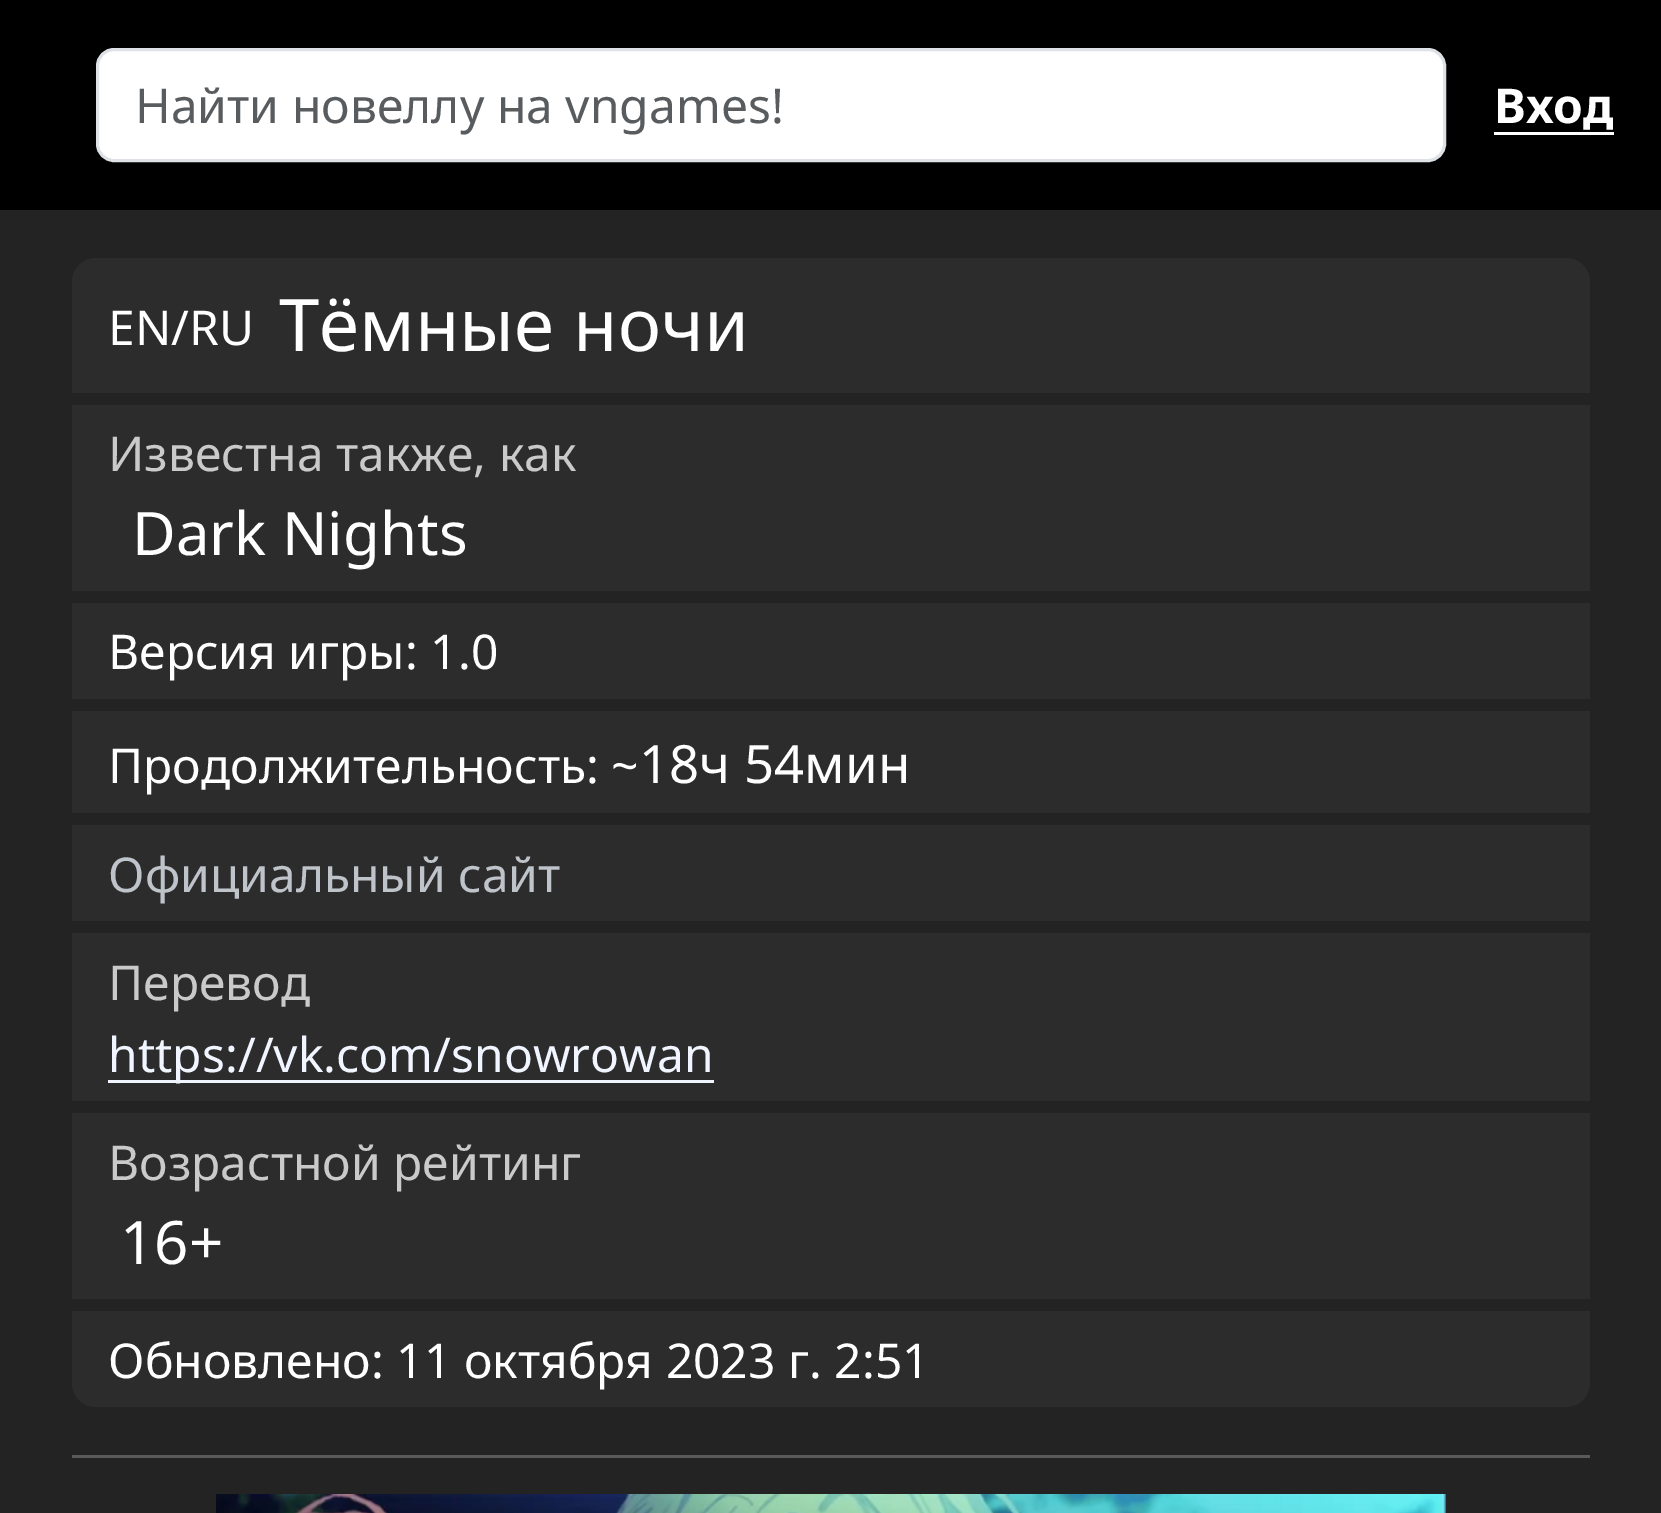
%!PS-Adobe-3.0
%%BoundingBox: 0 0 1661 1513
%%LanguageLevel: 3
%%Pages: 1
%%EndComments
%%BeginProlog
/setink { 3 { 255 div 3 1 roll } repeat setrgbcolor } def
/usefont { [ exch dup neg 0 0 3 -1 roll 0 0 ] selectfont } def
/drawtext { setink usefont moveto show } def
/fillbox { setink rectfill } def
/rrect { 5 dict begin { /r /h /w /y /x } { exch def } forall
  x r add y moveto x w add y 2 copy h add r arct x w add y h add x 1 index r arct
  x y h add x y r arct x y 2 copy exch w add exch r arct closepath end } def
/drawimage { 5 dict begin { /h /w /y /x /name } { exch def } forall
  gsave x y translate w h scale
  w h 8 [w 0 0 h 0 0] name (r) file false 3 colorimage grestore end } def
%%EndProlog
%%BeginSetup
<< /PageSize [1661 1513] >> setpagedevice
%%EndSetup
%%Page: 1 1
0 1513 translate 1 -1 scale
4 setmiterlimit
0 0 1661 1513 35 35 35 fillbox
0 0 1661 210 0 0 0 fillbox
255 255 255 setink
97.5 49.5 1347 111 16.5 rrect gsave fill grestore
222 226 230 setink
3 setlinewidth
stroke
(Найти новеллу на vngames!) 135 123 /NotoSans-Regular 48 89 92 95 drawtext
(Вход) 1494 123 /NotoSans-Bold 48 255 255 255 drawtext
1494 132 120 3 255 255 255 fillbox
44 44 44 setink
96 258 moveto 1566 258 lineto 1579.5 258 1590 268.5 1590 282 curveto 1590 393 lineto 72 393 lineto 72 282 lineto 72 268.5 82.5 258 96 258 curveto closepath fill
(EN/RU) 108 345 /NotoSans-Regular 48 255 255 255 drawtext
(Тёмные ночи) 279 351 /NotoSans-Regular 72.5 255 255 255 drawtext
72 405 1518 186 44 44 44 fillbox
(Известна также, как) 108 471 /NotoSans-Regular 48 202 202 202 drawtext
(Dark Nights) 132 555 /NotoSans-Regular 60 255 255 255 drawtext
72 603 1518 96 44 44 44 fillbox
(Версия игры: 1.0) 108 669 /NotoSans-Regular 48 255 255 255 drawtext
72 711 1518 102 44 44 44 fillbox
(Продолжительность: ~) 108 783 /NotoSans-Regular 48 255 255 255 drawtext
(18ч 54мин) 639 783 /NotoSans-Regular 52.75 255 255 255 drawtext
72 825 1518 96 44 44 44 fillbox
(Официальный сайт) 108 892 /NotoSans-Regular 48 191 195 202 drawtext
72 933 1518 168 44 44 44 fillbox
(Перевод) 108 1000 /NotoSans-Regular 48 202 202 202 drawtext
108 1080 606 3 240 245 255 fillbox
(https://vk.com/snowrowan) 108 1072 /NotoSans-Regular 48 240 245 255 drawtext
72 1113 1518 186 44 44 44 fillbox
(Возрастной рейтинг) 108 1180 /NotoSans-Regular 48 202 202 202 drawtext
(16+) 120 1264 /NotoSans-Regular 60 255 255 255 drawtext
44 44 44 setink
72 1311 moveto 1590 1311 lineto 1590 1383 lineto 1590 1396.5 1579.5 1407 1566 1407 curveto 96 1407 lineto 82.5 1407 72 1396.5 72 1383 curveto closepath fill
(Обновлено: 11 октября 2023 г. 2:51) 108 1378 /NotoSans-Regular 48 255 255 255 drawtext
72 1455 1518 3 90 90 90 fillbox
(assets/img1.rgb) 216 1494 1230 19 drawimage
showpage
%%EOF
